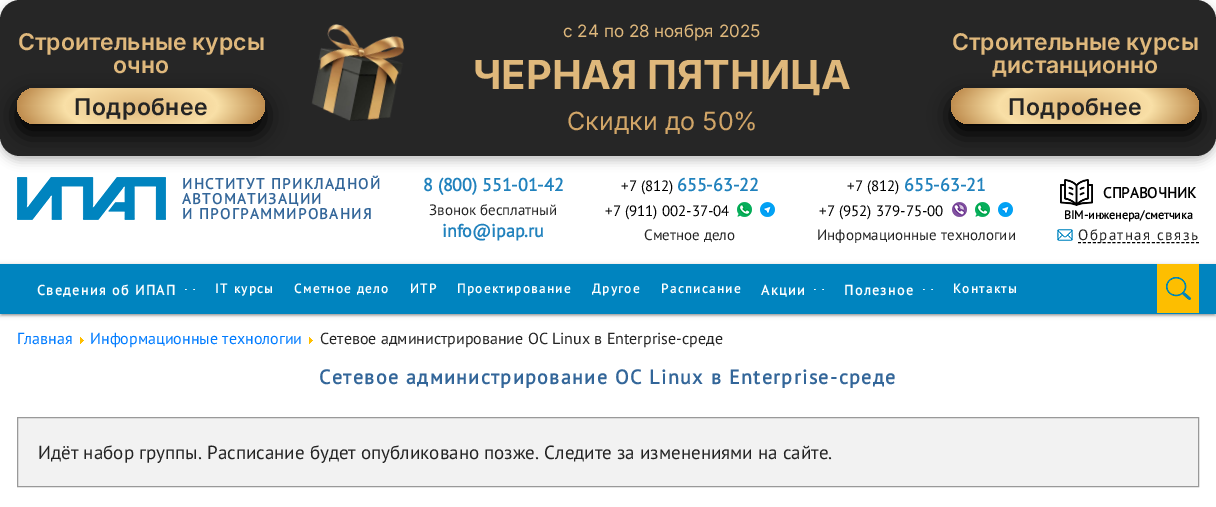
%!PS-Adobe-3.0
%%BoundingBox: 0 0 1216 507
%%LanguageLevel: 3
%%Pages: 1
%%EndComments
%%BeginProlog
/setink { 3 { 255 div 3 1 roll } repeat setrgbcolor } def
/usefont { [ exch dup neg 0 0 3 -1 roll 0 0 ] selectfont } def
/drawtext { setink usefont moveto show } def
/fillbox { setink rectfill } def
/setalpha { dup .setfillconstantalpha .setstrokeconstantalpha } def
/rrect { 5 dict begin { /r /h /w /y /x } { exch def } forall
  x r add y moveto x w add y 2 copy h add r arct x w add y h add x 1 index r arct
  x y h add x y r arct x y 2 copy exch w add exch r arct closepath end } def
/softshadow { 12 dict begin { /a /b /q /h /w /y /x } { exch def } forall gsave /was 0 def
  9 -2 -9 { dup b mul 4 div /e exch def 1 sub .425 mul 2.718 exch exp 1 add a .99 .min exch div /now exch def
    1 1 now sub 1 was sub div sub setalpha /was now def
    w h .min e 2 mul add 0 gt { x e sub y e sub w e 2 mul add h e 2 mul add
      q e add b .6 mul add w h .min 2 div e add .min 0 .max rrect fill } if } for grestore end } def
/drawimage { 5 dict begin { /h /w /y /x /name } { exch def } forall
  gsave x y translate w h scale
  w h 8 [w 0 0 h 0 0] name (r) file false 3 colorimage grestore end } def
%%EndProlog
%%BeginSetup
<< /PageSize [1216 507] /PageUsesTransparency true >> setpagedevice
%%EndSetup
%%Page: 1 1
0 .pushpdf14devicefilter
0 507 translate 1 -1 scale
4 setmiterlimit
0 0 1216 507 255 255 255 fillbox
0 0 0 setink
0 4 1216 156 20 5.5 0.26 softshadow
38 38 38 setink
0 0 1216 156 20 rrect fill
(Строительные курсы) 18 50 /Inter-SemiBold 23 223 184 124 drawtext
(очно) 113 73 /Inter-SemiBold 23 223 184 124 drawtext
0 0 0 setink
17 98 248 36 18 11 1 softshadow
gsave 17 88 248 36 18 rrect clip newpath 141 106 translate 124 44 scale
<< /ShadingType 3 /ColorSpace /DeviceRGB /Coords [0 0 0 0 0 1] /Extend [true true] /Function << /FunctionType 3 /Domain [0 1] /Functions [<< /FunctionType 2 /Domain [0 1] /C0 [0.878 0.722 0.486] /C1 [0.976 0.878 0.655] /N 1 >> << /FunctionType 2 /Domain [0 1] /C0 [0.976 0.878 0.655] /C1 [0.753 0.557 0.314] /N 1 >>] /Bounds [0.62] /Encode [0 1 0 1] >> >> shfill grestore
36 36 36 setink
74 115 moveto 0.5 0 (Подробнее) ashow
(assets/img1.rgb) 311 24 94 97 drawimage
(с 24 по 28 ноября 2025) 563 37 /Inter-Regular 17 223 184 124 drawtext
(ЧЕРНАЯ ПЯТНИЦА) 473 89 /Inter-Bold 40 223 184 123 drawtext
(Скидки до 50%) 567 130 /Inter-Regular 25 209 165 103 drawtext
(Строительные курсы) 952 50 /Inter-SemiBold 23 223 184 124 drawtext
(дистанционно) 992 73 /Inter-SemiBold 23 223 184 124 drawtext
0 0 0 setink
951 98 248 36 18 11 1 softshadow
gsave 951 88 248 36 18 rrect clip newpath 1075 106 translate 124 44 scale
<< /ShadingType 3 /ColorSpace /DeviceRGB /Coords [0 0 0 0 0 1] /Extend [true true] /Function << /FunctionType 3 /Domain [0 1] /Functions [<< /FunctionType 2 /Domain [0 1] /C0 [0.878 0.722 0.486] /C1 [0.976 0.878 0.655] /N 1 >> << /FunctionType 2 /Domain [0 1] /C0 [0.976 0.878 0.655] /C1 [0.753 0.557 0.314] /N 1 >>] /Bounds [0.62] /Encode [0 1 0 1] >> >> shfill grestore
36 36 36 setink
1008 115 moveto 0.5 0 (Подробнее) ashow
(assets/img2.rgb) 17 177 149 43 drawimage
/PTSans-Bold 15 usefont
51 102 153 setink
182 189 moveto 1.4 0 (ИНСТИТУТ ПРИКЛАДНОЙ) ashow
182 204 moveto 1.4 0 (АВТОМАТИЗАЦИИ) ashow
182 219 moveto 1.4 0 (И ПРОГРАММИРОВАНИЯ) ashow
(8 \(800\) 551-01-42) 423 191 /PTSans-Bold 18 33 130 189 drawtext
(Звонок бесплатный) 429 215 /PTSans-Regular 15 36 36 36 drawtext
(info@ipap.ru) 442 237 /PTSans-Bold 18 33 130 189 drawtext
(+7 \(812\)) 621 191 /PTSans-Regular 15 0 0 0 drawtext
(655-63-22) 677 191 /PTSans-Bold 18 33 130 189 drawtext
(+7 \(911\) 002-37-04) 605 216 /PTSans-Regular 15 0 0 0 drawtext
(assets/img3.rgb) 737 202 15 15 drawimage
(assets/img4.rgb) 760 202 15 15 drawimage
(Cметное дело) 644 240 /PTSans-Regular 15 36 36 36 drawtext
(+7 \(812\)) 847 191 /PTSans-Regular 15 0 0 0 drawtext
(655-63-21) 904 191 /PTSans-Bold 18 33 130 189 drawtext
(+7 \(952\) 379-75-00) 819 216 /PTSans-Regular 15 0 0 0 drawtext
(assets/img5.rgb) 952 202 15 15 drawimage
(assets/img3.rgb) 975 202 15 15 drawimage
(assets/img4.rgb) 998 202 15 15 drawimage
(Информационные технологии) 817 240 /PTSans-Regular 15 36 36 36 drawtext
(assets/img6.rgb) 1060 179 33 27 drawimage
(СПРАВОЧНИК) 1103 198 /PTSans-Bold 15 0 0 0 drawtext
(BIM-инженера/сметчика) 1064 219 /PTSans-Bold 12 0 0 0 drawtext
(assets/img7.rgb) 1057 229 16 12 drawimage
[3 1.92] 0 setdash
1078 242.5 moveto 1199 242.5 lineto stroke
/PTSans-Regular 15 usefont
36 36 36 setink
1078 240 moveto 1.4 0 (Обратная связь) ashow
0 0 0 setink
0 265 1216 50 0 2.5 0.2 softshadow
2 269 1212 46 0 0.5 0.12 softshadow
0 266 1216 50 0 1 0.14 softshadow
0 264 1216 50 0 132 191 fillbox
/PTSans-Bold 14 usefont
255 255 255 setink
37 295 moveto 1.4 0 (Сведения об ИПАП) ashow
(assets/img8.rgb) 185 289 10 1 drawimage
/PTSans-Bold 13 usefont
215 293 moveto 1.4 0 (IT курсы) ashow
294 293 moveto 1.4 0 (Сметное дело) ashow
410 293 moveto 1.4 0 (ИТР) ashow
457 293 moveto 1.4 0 (Проектирование) ashow
592 293 moveto 1.4 0 (Другое) ashow
661 293 moveto 1.4 0 (Расписание) ashow
/PTSans-Bold 14 usefont
761 295 moveto 1.4 0 (Акции) ashow
(assets/img8.rgb) 814 289 10 1 drawimage
844 295 moveto 1.4 0 (Полезное) ashow
(assets/img8.rgb) 923 289 10 1 drawimage
/PTSans-Bold 13 usefont
953 293 moveto 1.4 0 (Контакты) ashow
(assets/img9.rgb) 1157 264 42 49 drawimage
(Главная) 17 344 /PTSans-Regular 16 0 123 255 drawtext
(assets/img10.rgb) 80 337 4 7 drawimage
(Информационные технологии) 90 344 /PTSans-Regular 16 0 123 255 drawtext
(assets/img10.rgb) 309 337 4 7 drawimage
(Сетевое администрирование ОС Linux в Enterprise-среде) 320 344 /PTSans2-Regular 16 36 36 36 drawtext
/PTSans-Bold 20 usefont
51 102 153 setink
319 384 moveto 1.4 0 (Сетевое администрирование ОС Linux в Enterprise-среде) ashow
242 242 242 setink
17.5 417.5 moveto 1198.5 417.5 lineto 1198.5 486.5 lineto 17.5 486.5 lineto closepath gsave fill grestore
153 153 153 setink
[] 0 setdash
stroke
(Идёт набор группы. Расписание будет опубликовано позже. Следите за изменениями на сайте.) 38 459 /PTSans-Regular 19 36 36 36 drawtext
.poppdf14devicefilter showpage
%%EOF
